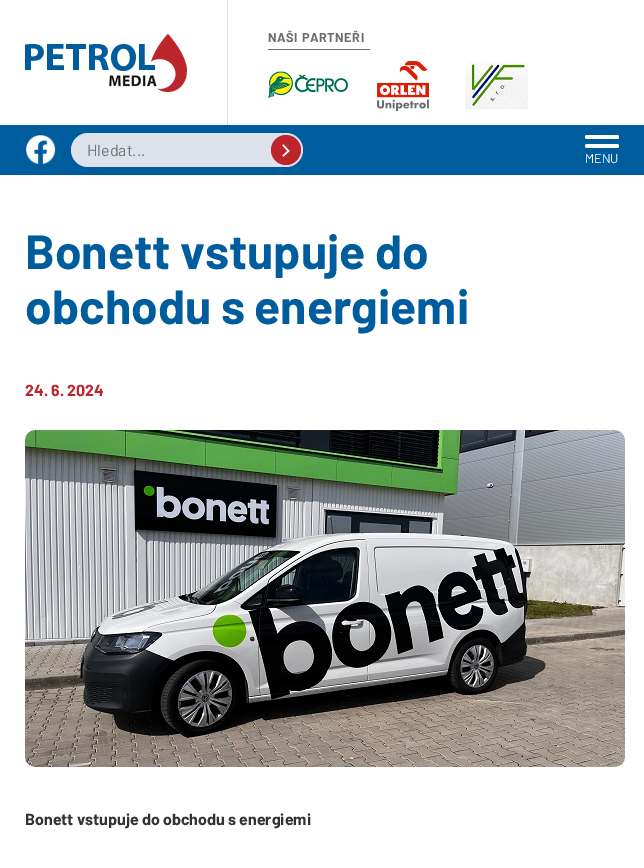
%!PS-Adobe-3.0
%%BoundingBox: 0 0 644 868
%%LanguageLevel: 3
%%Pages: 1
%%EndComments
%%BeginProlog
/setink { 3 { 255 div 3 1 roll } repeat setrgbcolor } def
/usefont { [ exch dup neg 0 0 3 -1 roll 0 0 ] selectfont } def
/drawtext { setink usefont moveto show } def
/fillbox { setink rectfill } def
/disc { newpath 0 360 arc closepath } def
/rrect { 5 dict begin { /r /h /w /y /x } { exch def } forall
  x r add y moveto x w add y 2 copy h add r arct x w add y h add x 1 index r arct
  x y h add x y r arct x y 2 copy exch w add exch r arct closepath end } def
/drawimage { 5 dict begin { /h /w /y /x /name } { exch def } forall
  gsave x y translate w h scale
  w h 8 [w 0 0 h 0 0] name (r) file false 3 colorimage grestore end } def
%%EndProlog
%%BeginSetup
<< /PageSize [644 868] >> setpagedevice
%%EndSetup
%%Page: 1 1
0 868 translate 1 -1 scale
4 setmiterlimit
0 0 644 868 255 255 255 fillbox
(assets/img1.rgb) 25 34 162 58 drawimage
227 0 1 125 221 226 235 fillbox
/Barlow-Bold 12.75 usefont
109 109 109 setink
268 42 moveto 0.6 0 (NAŠI PARTNEŘI) ashow
268 49 102 1 109 109 109 fillbox
(assets/img2.rgb) 268 71 80 27 drawimage
(assets/img3.rgb) 377 61 52 50 drawimage
(assets/img4.rgb) 465 61 63 49 drawimage
0 125 644 50 0 93 157 fillbox
(assets/img5.rgb) 26 135 30 30 drawimage
221 226 235 setink
71 133 232 34 17 rrect fill
(Hledat...) 87 156 /Barlow-Regular 16 117 117 117 drawtext
189 37 44 setink
286 150 15 disc fill
255 255 255 setink
1.5 setlinewidth
283 145 moveto 288.5 151 lineto 283 156 lineto stroke
585 135 34 4 2 rrect fill
585 144 34 4 2 rrect fill
(MENU) 585 163 /Barlow-Regular 12.75 255 255 255 drawtext
(Bonett vstupuje do) 25 269 /Barlow-Bold 48 0 93 157 drawtext
(obchodu s energiemi) 25 324 /Barlow-Bold 48 0 93 157 drawtext
(24. 6. 2024) 25 396 /Barlow-Bold 16 189 37 44 drawtext
(assets/img6.rgb) 25 430 600 337 drawimage
(Bonett vstupuje do obchodu s energiemi) 25 825 /Barlow-Bold 16 51 51 51 drawtext
showpage
%%EOF
